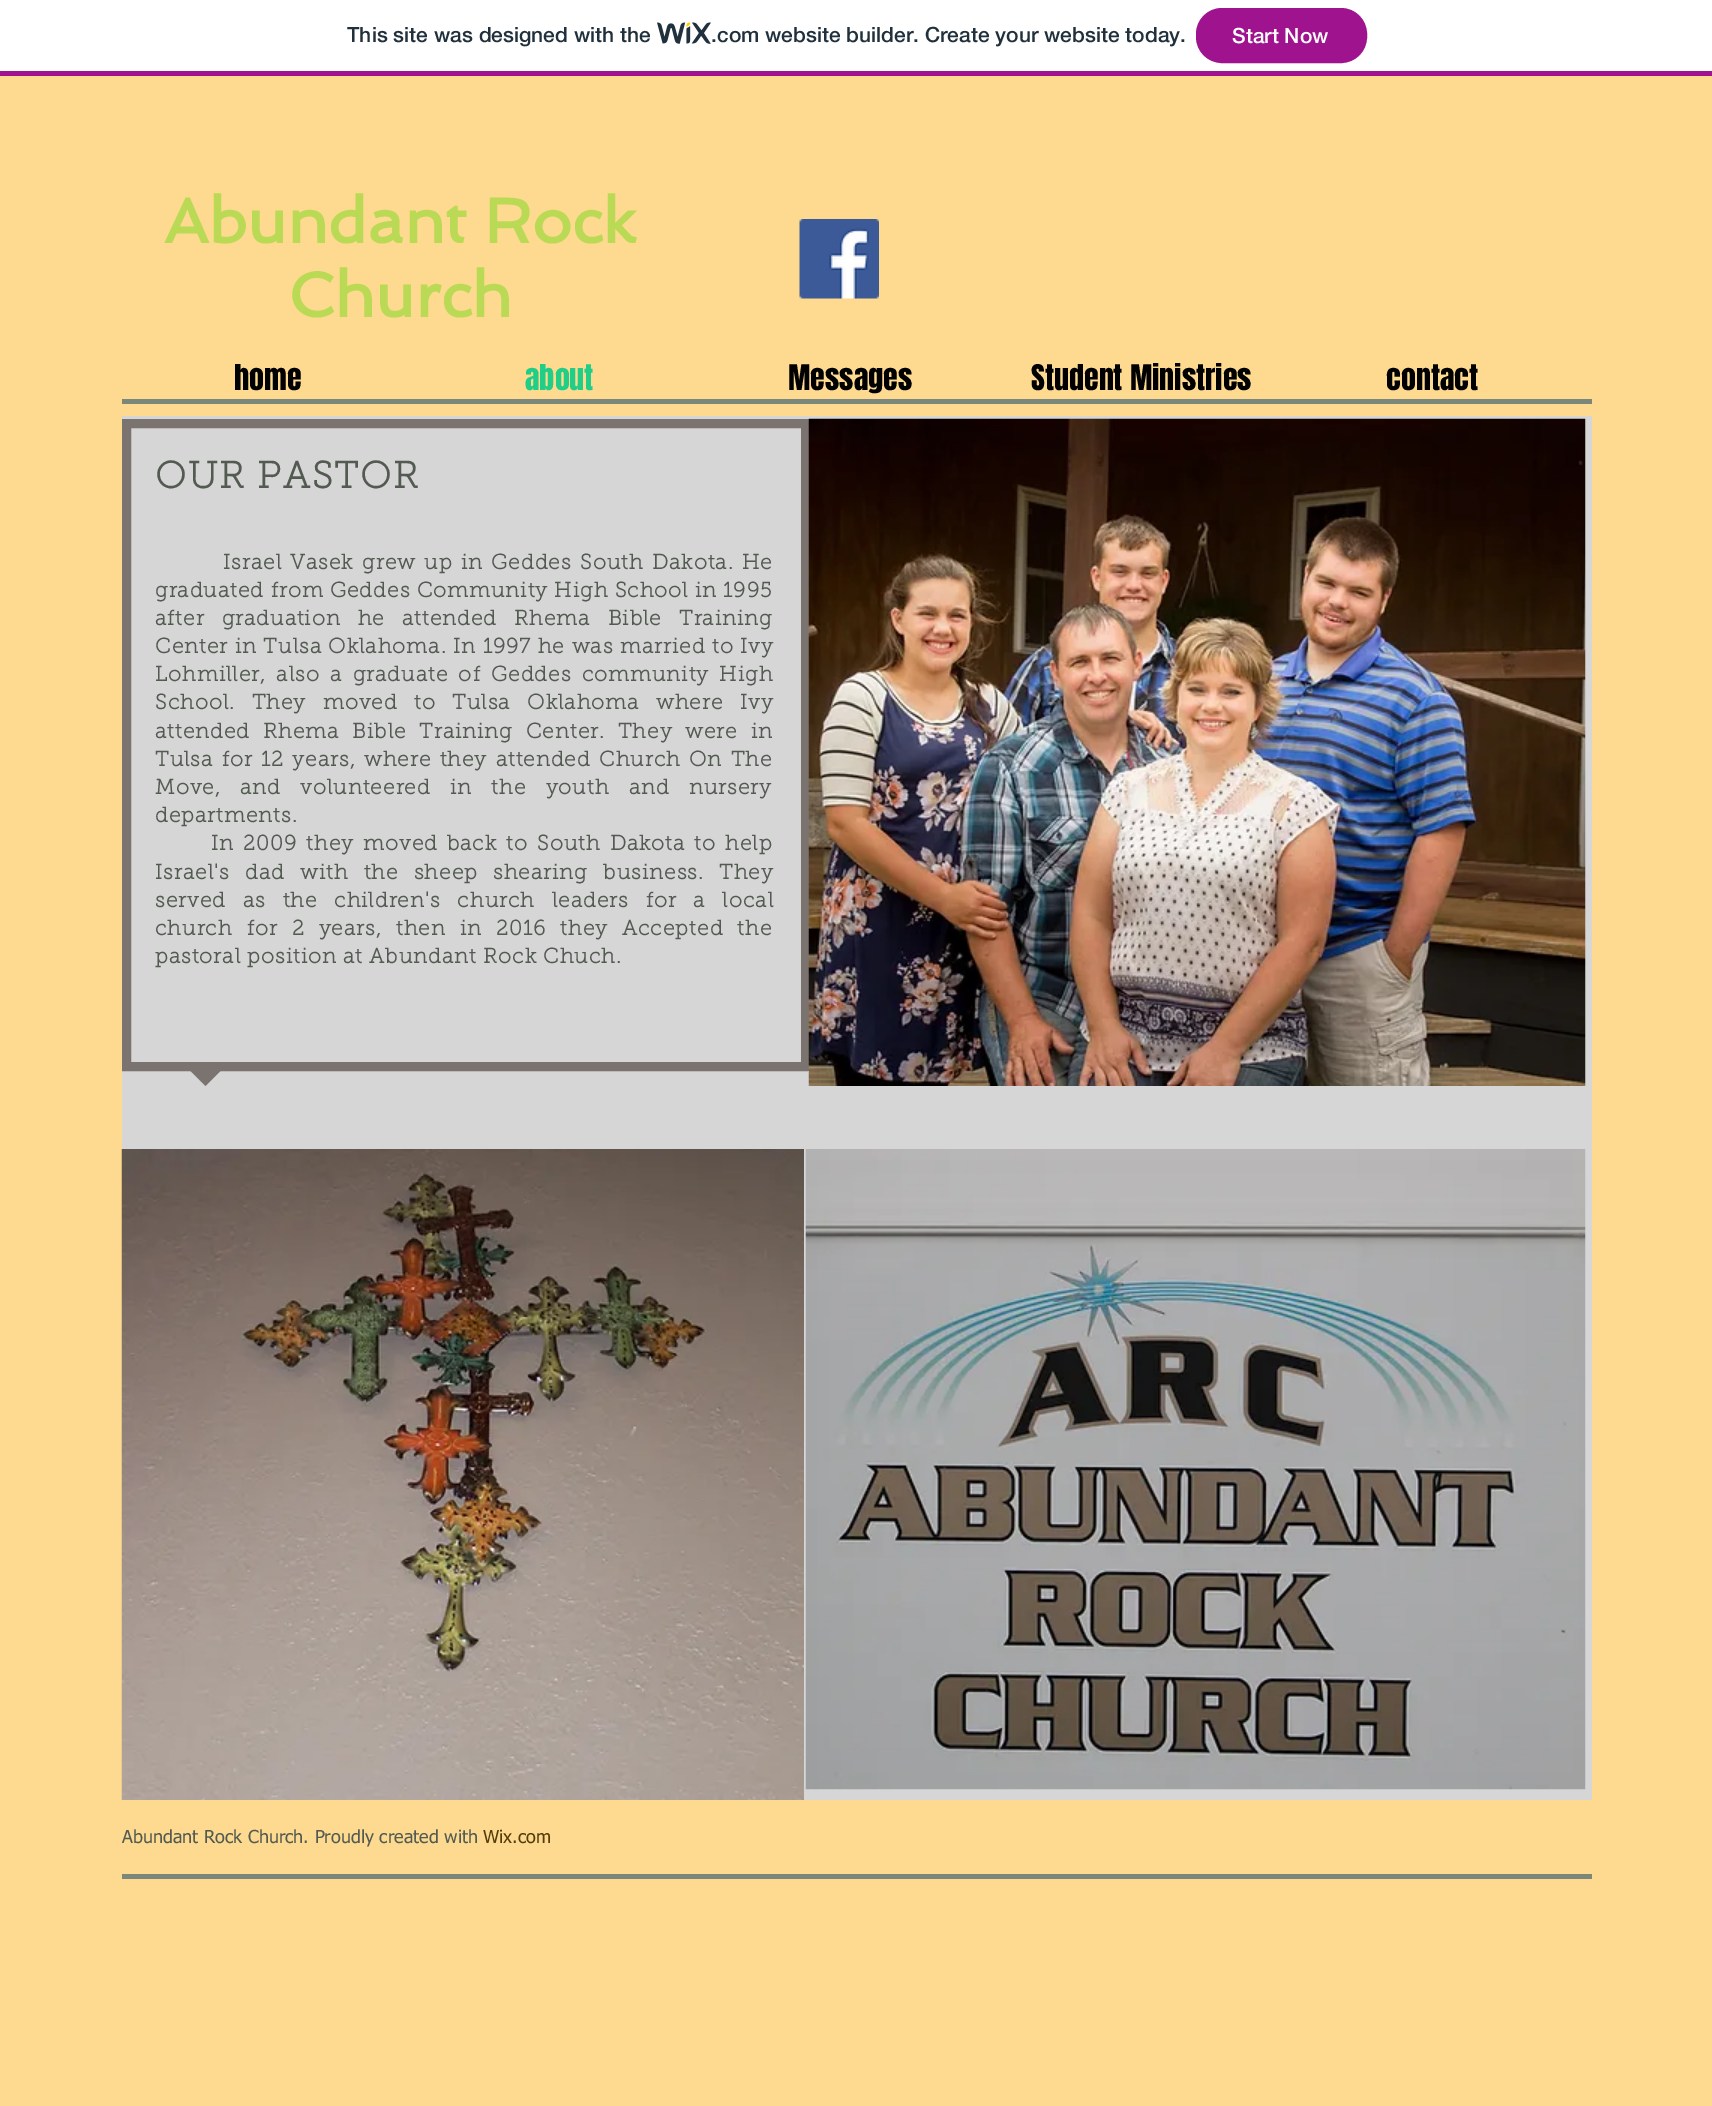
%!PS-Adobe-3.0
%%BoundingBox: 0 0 1712 2106
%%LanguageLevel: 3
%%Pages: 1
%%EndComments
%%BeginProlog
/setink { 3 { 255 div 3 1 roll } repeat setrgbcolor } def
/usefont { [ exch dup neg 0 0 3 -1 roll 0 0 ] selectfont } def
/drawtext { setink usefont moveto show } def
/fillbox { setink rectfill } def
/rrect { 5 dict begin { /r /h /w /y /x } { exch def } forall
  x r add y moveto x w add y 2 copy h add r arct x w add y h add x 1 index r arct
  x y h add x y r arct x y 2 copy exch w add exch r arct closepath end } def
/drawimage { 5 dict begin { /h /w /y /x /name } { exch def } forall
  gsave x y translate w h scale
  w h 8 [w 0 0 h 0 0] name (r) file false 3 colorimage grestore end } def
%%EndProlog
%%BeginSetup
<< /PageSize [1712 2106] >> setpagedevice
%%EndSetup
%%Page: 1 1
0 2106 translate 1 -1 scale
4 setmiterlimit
0 0 1712 2106 255 255 255 fillbox
0 71 1712 5 160 19 142 fillbox
(This site was designed with the) 347 42 /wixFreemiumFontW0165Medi-Medium 21 32 48 60 drawtext
(assets/img1.rgb) 657 22 54 22 drawimage
(.com website builder. Create your website today.) 711 42 /wixFreemiumFontW0165Medi-Medium 21 32 48 60 drawtext
160 19 142 setink
1197 9 169 53 25 rrect gsave fill grestore
2 setlinewidth
stroke
(Start Now) 1232 43 /wixFreemiumFontW0165Medi-Medium 21 255 255 255 drawtext
0 76 1712 2030 253 218 143 fillbox
(Abundant Rock) 164 243 /Spinnaker-Bold 63 186 218 85 drawtext
(Church) 288 317 /Spinnaker-Bold 63 186 218 85 drawtext
(assets/img2.rgb) 799 219 80 80 drawimage
122 399 1470 5 123 135 122 fillbox
(home) 234 390 /Anton-Regular 30 0 0 0 drawtext
(about) 525 390 /Anton-Regular 30 32 206 136 drawtext
(Messages) 788 390 /Anton-Regular 30 0 0 0 drawtext
(Student Ministries) 1031 390 /Anton-Regular 30 0 0 0 drawtext
(contact) 1386 390 /Anton-Regular 30 0 0 0 drawtext
122 416 1470 1384 214 214 214 fillbox
123 115 111 setink
9 setlinewidth
126.5 423.5 679 643 rectstroke
190.5 1071 moveto 220.5 1071 lineto 205.5 1086 lineto closepath fill
(assets/img3.rgb) 808 418 778 668 drawimage
/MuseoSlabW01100-Bold 37.5 usefont
82 90 81 setink
155 488 moveto 1.9 0 (OUR PASTOR) ashow
/MuseoSlabW01100-Bold 21 usefont
223 569 moveto 2 0 32 1.05 0 (Israel Vasek grew up in Geddes South Dakota. He) awidthshow
155 597 moveto 1.05 0 (graduated from Geddes Community High School in 1995) ashow
155 625 moveto 10.75 0 32 1.05 0 (after graduation he attended Rhema Bible Training) awidthshow
155 653 moveto 0.25 0 32 1.05 0 (Center in Tulsa Oklahoma. In 1997 he was married to Ivy) awidthshow
155 681 moveto 4 0 32 1.05 0 (Lohmiller, also a graduate of Geddes community High) awidthshow
155 709 moveto 10.25 0 32 1.05 0 (School. They moved to Tulsa Oklahoma where Ivy) awidthshow
155 738 moveto 6.5 0 32 1.05 0 (attended Rhema Bible Training Center. They were in) awidthshow
155 766 moveto 2 0 32 1.05 0 (Tulsa for 12 years, where they attended Church On The) awidthshow
155 794 moveto 13 0 32 1.05 0 (Move, and volunteered in the youth and nursery) awidthshow
155 822 moveto 1.05 0 (departments.) ashow
211 850 moveto 2.75 0 32 1.05 0 (In 2009 they moved back to South Dakota to help) awidthshow
155 879 moveto 9 0 32 1.05 0 (Israel's dad with the sheep shearing business. They) awidthshow
155 907 moveto 10.5 0 32 1.05 0 (served as the children's church leaders for a local) awidthshow
155 935 moveto 7.75 0 32 1.05 0 (church for 2 years, then in 2016 they Accepted the) awidthshow
155 963 moveto 1.05 0 (pastoral position at Abundant Rock Chuch.) ashow
(assets/img4.rgb) 121 1149 683 651 drawimage
(assets/img5.rgb) 805 1149 781 641 drawimage
(Abundant Rock Church. Proudly created with) 122 1843 /tahoma-Regular 18 82 90 81 drawtext
(Wix.com) 483 1843 /tahoma-Regular 18 84 60 10 drawtext
122 1874 1470 5 123 135 122 fillbox
showpage
%%EOF
